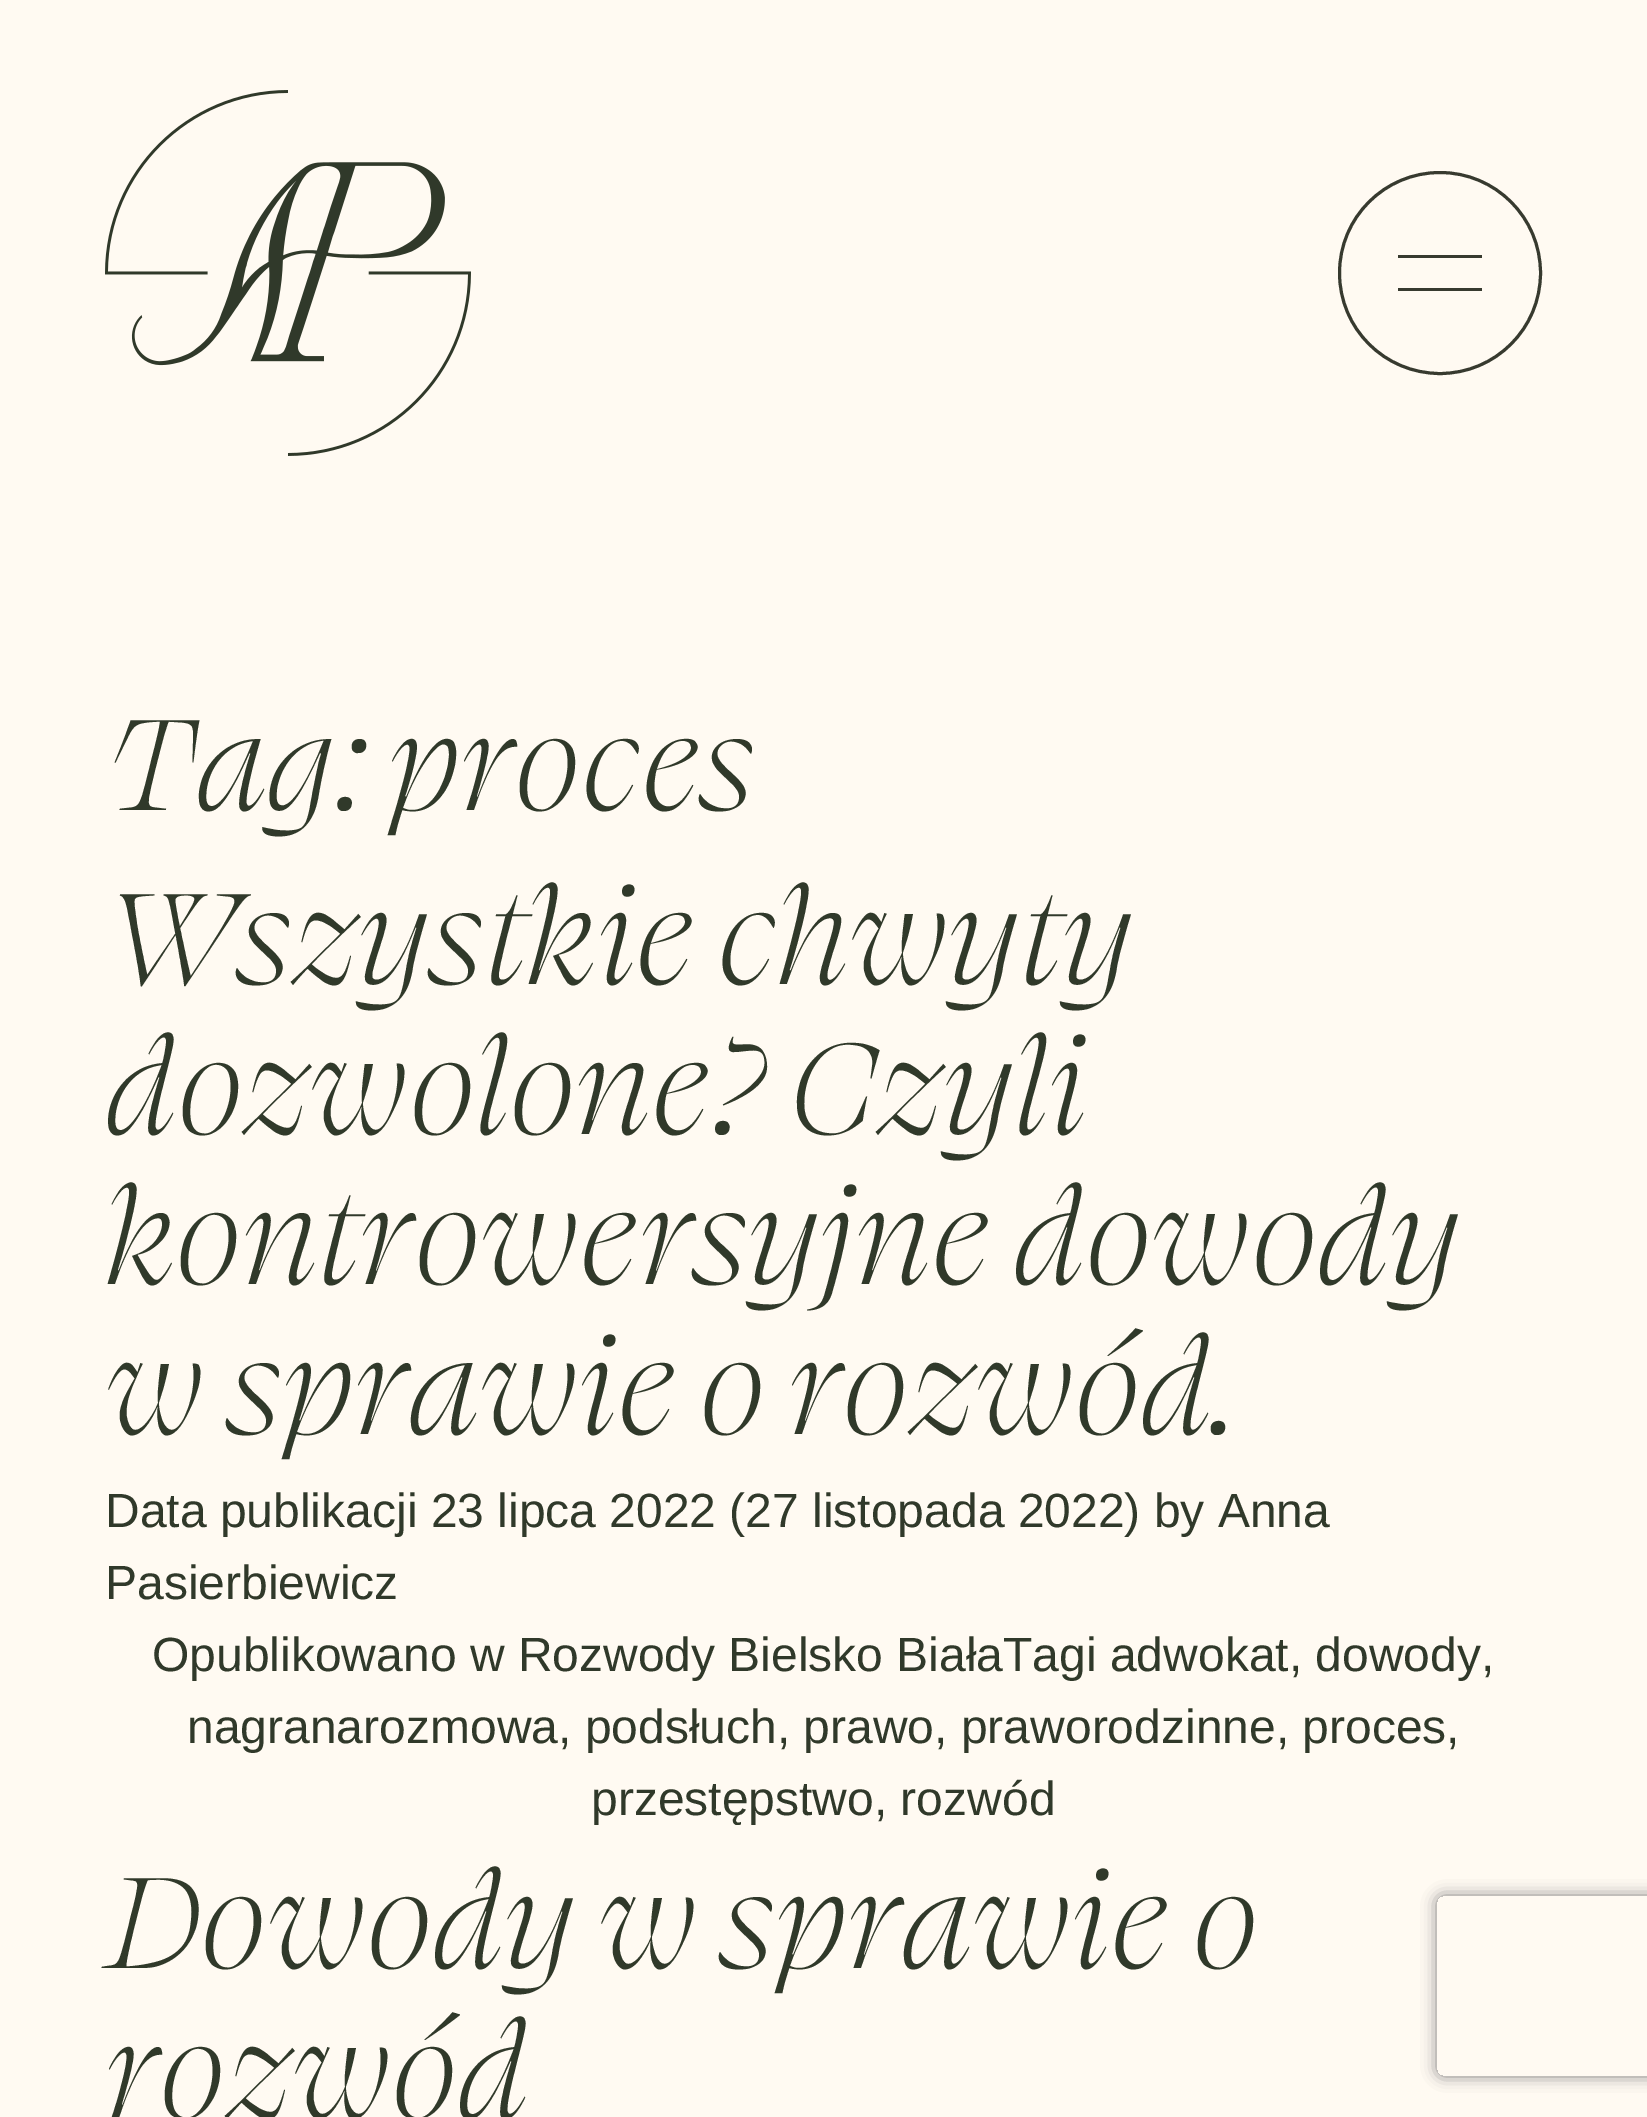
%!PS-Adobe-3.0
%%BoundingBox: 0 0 1647 2117
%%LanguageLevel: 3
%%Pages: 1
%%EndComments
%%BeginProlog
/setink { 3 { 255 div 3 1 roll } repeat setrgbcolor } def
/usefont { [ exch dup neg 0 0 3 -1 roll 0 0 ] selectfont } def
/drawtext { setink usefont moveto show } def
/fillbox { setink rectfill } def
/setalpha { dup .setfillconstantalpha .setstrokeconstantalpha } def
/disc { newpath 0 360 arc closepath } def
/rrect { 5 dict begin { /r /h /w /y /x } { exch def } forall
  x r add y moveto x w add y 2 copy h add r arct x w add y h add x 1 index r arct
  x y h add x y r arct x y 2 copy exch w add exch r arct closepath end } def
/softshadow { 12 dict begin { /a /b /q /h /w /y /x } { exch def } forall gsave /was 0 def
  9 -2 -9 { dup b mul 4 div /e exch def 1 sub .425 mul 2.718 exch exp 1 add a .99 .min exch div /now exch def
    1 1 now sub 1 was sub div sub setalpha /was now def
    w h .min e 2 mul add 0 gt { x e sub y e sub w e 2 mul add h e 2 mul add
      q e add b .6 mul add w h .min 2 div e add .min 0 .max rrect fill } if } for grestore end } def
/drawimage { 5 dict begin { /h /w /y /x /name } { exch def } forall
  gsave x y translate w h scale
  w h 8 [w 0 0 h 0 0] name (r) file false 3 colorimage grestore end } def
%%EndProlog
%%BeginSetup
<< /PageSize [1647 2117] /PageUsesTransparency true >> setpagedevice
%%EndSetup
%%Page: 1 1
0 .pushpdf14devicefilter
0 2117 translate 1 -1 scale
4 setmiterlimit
0 0 1647 2117 255 250 242 fillbox
(assets/img1.rgb) 105 90 366 366 drawimage
55 58 47 setink
3 setlinewidth
1440 273 100.5 disc stroke
1398 255 84 3 55 58 47 fillbox
1398 288 84 3 55 58 47 fillbox
(Tag: proces) 105 810 /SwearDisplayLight-LightItalic 150 48 57 42 drawtext
(Wszystkie chwyty) 105 984 /SwearDisplayLight-LightItalic 150 48 57 42 drawtext
(dozwolone? Czyli) 105 1134 /SwearDisplayLight-LightItalic 150 48 57 42 drawtext
(kontrowersyjne dowody) 105 1284 /SwearDisplayLight-LightItalic 150 48 57 42 drawtext
(w sprawie o rozwód.) 105 1434 /SwearDisplayLight-LightItalic 150 48 57 42 drawtext
(Data publikacji 23 lipca 2022 \(27 listopada 2022\) by Anna) 105 1527 /LiberationSans-Regular 48 48 57 42 drawtext
(Pasierbiewicz) 105 1599 /LiberationSans-Regular 48 48 57 42 drawtext
(Opublikowano w Rozwody Bielsko BiałaTagi adwokat, dowody,) 152 1671 /LiberationSans-Regular 48 48 57 42 drawtext
(nagranarozmowa, podsłuch, prawo, praworodzinne, proces,) 187 1743 /LiberationSans-Regular 48 48 57 42 drawtext
(przestępstwo, rozwód) 591 1815 /LiberationSans-Regular 48 48 57 42 drawtext
(Dowody w sprawie o) 105 1968 /SwearDisplayLight-LightItalic 150 48 57 42 drawtext
(rozwód) 105 2118 /SwearDisplayLight-LightItalic 150 48 57 42 drawtext
gsave
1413 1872 moveto 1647 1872 lineto 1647 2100 lineto 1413 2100 lineto closepath 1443 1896 moveto 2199 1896 lineto 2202.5 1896 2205 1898.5 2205 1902 curveto 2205 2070 lineto 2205 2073.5 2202.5 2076 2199 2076 curveto 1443 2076 lineto 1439.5 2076 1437 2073.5 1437 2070 curveto 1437 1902 lineto 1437 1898.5 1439.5 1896 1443 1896 curveto closepath eoclip newpath
128 128 128 setink
1437 1896 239 180 6 7.5 1 softshadow
grestore
.poppdf14devicefilter showpage
%%EOF
